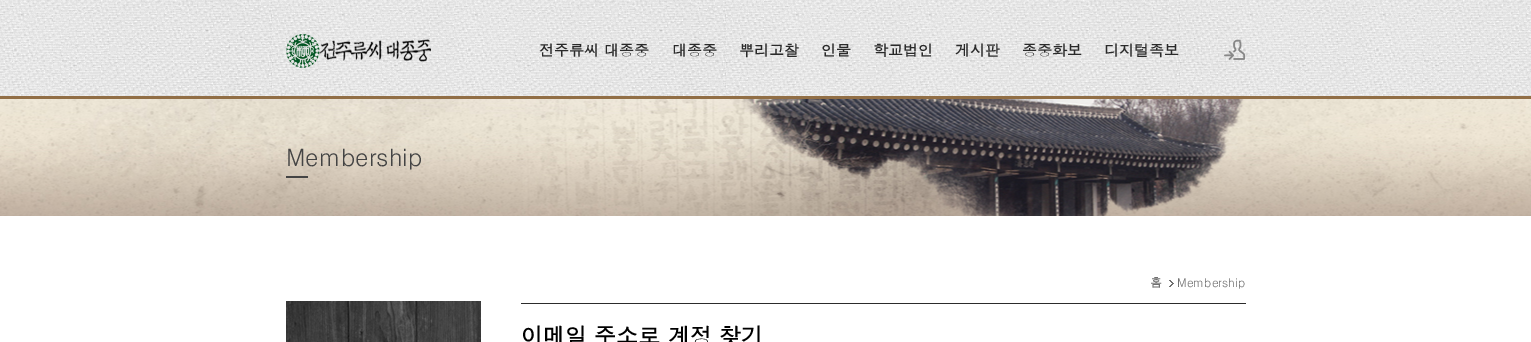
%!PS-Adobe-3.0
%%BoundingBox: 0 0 1531 342
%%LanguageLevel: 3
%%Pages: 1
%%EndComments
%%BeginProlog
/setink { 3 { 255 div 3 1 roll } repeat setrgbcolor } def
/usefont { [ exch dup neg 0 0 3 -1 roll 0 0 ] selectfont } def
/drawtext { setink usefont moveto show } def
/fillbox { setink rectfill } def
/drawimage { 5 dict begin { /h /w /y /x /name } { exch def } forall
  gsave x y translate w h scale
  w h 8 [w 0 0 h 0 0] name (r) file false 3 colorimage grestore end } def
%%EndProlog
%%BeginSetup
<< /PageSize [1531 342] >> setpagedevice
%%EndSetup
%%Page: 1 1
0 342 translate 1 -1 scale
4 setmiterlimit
0 0 1531 342 255 255 255 fillbox
(assets/img1.rgb) 0 0 1531 96 drawimage
0 96 1531 3 145 110 69 fillbox
(assets/img2.rgb) 286 34 145 34 drawimage
(전주류씨 대종중) 539 56 /Dotum-Bold 15 42 42 42 drawtext
(대종중) 672 56 /Dotum-Bold 15 42 42 42 drawtext
(뿌리고찰) 739 56 /Dotum-Bold 15 42 42 42 drawtext
(인물) 821 56 /Dotum-Bold 15 42 42 42 drawtext
(학교법인) 873 56 /Dotum-Bold 15 42 42 42 drawtext
(게시판) 955 56 /Dotum-Bold 15 42 42 42 drawtext
(종중화보) 1022 56 /Dotum-Bold 15 42 42 42 drawtext
(디지털족보) 1104 56 /Dotum-Bold 15 42 42 42 drawtext
(assets/img3.rgb) 1224 39 22 21 drawimage
(assets/img4.rgb) 0 99 1531 117 drawimage
(Membership) 286 166 /Dotum-Regular 24 68 68 68 drawtext
286 176 22 2 68 68 68 fillbox
(assets/img5.rgb) 286 301 195 41 drawimage
521 303 725 1 44 44 44 fillbox
(홈) 1150 287 /Dotum-Bold 12 112 112 112 drawtext
(assets/img6.rgb) 1169 280 5 7 drawimage
(Membership) 1177 287 /Dotum-Regular 12 112 112 112 drawtext
(이메일 주소로 계정 찾기) 521 344 /Dotum-Bold 22 0 0 0 drawtext
showpage
%%EOF
